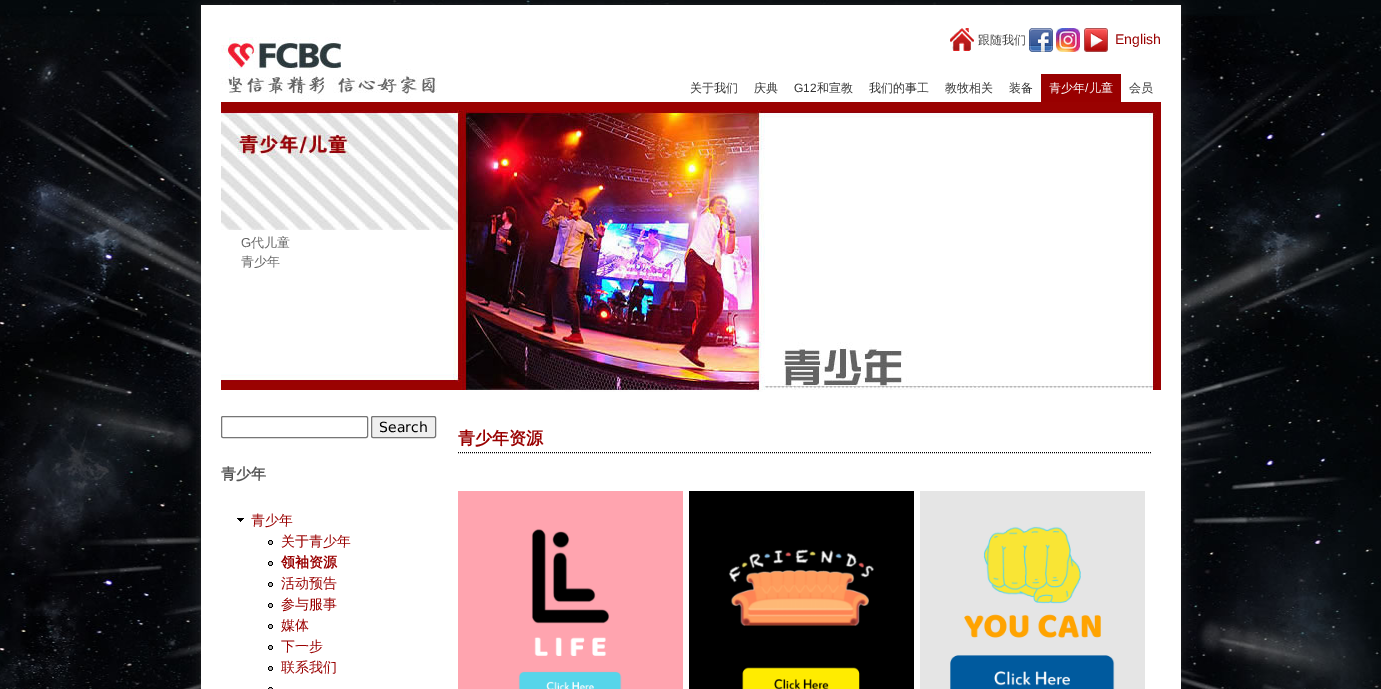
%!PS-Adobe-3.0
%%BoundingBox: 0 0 1381 689
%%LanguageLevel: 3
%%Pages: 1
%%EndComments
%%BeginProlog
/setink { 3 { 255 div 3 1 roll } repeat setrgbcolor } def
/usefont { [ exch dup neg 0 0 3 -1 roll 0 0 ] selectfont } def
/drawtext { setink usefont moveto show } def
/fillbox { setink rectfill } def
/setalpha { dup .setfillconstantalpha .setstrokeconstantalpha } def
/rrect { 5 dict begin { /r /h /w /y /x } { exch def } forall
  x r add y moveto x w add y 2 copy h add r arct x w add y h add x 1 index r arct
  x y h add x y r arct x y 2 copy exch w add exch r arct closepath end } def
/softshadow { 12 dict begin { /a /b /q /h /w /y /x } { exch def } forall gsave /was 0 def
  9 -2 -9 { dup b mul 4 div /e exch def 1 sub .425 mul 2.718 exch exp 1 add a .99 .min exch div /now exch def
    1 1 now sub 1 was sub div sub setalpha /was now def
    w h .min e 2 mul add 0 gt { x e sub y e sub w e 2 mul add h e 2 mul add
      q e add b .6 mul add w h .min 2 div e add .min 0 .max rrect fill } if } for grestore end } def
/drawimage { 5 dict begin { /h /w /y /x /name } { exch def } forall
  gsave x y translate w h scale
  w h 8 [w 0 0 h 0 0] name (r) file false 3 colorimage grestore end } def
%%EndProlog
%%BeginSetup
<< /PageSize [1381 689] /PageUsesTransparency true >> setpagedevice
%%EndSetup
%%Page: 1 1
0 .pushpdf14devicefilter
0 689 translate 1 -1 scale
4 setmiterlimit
0 0 1381 689 255 255 255 fillbox
(assets/img1.rgb) 0 0 1381 689 drawimage
50 50 50 setink
201 5 980 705 0 7 0.6 softshadow
201 5 980 684 255 255 255 fillbox
(assets/img2.rgb) 950 28 24 23 drawimage
(跟随我们) 978 44 /WenQuanYiZenHei-Medium 12 68 68 68 drawtext
(assets/img3.rgb) 1029 28 24 24 drawimage
(assets/img4.rgb) 1056 28 24 24 drawimage
(assets/img5.rgb) 1084 28 24 24 drawimage
(English) 1115 44 /LiberationSans-Regular 14 153 0 0 drawtext
(关于我们) 690 92 /WenQuanYiZenHei-Medium 12 51 51 51 drawtext
(庆典) 754 92 /WenQuanYiZenHei-Medium 12 51 51 51 drawtext
(G12) 794 92 /LiberationSans-Regular 12 51 51 51 drawtext
(和宣教) 817 92 /WenQuanYiZenHei-Medium 12 51 51 51 drawtext
(我们的事工) 869 92 /WenQuanYiZenHei-Medium 12 51 51 51 drawtext
(教牧相关) 945 92 /WenQuanYiZenHei-Medium 12 51 51 51 drawtext
(装备) 1009 92 /WenQuanYiZenHei-Medium 12 51 51 51 drawtext
1041 74 80 28 153 0 0 fillbox
(青少年 儿童) 1049 92 /WenQuanYiZenHei-Medium 12 255 255 255 drawtext
(/) 1085 92 /LiberationSans-Regular 12 255 255 255 drawtext
(会员) 1129 92 /WenQuanYiZenHei-Medium 12 51 51 51 drawtext
(assets/img6.rgb) 221 102 940 290 drawimage
(G) 241 247 /LiberationSans-Regular 13 102 102 102 drawtext
(代儿童) 251 247 /WenQuanYiZenHei-Medium 13 102 102 102 drawtext
(青少年) 241 266 /WenQuanYiZenHei-Medium 13 102 102 102 drawtext
(assets/img7.rgb) 221 37 216 63 drawimage
118 118 118 setink
221.5 416.5 146 21 1.5 rrect stroke
239 239 239 setink
371.5 416.5 64 21 1.5 rrect gsave fill grestore
118 118 118 setink
stroke
(Search) 379 432 /DejaVuSans-Regular 14 0 0 0 drawtext
(青少年) 221 479 /WenQuanYiZenHei-Bold 15 85 85 85 drawtext
(assets/img8.rgb) 237 518 7 4 drawimage
(青少年) 251 525 /WenQuanYiZenHei-Medium 14 153 0 0 drawtext
(assets/img9.rgb) 268 540 5 5 drawimage
(关于青少年) 281 546 /WenQuanYiZenHei-Medium 14 153 0 0 drawtext
(assets/img9.rgb) 268 561 5 5 drawimage
(领袖资源) 281 567 /WenQuanYiZenHei-Bold 14 153 0 0 drawtext
(assets/img9.rgb) 268 582 5 5 drawimage
(活动预告) 281 588 /WenQuanYiZenHei-Medium 14 153 0 0 drawtext
(assets/img9.rgb) 268 603 5 5 drawimage
(参与服事) 281 609 /WenQuanYiZenHei-Medium 14 153 0 0 drawtext
(assets/img9.rgb) 268 624 5 5 drawimage
(媒体) 281 630 /WenQuanYiZenHei-Medium 14 153 0 0 drawtext
(assets/img9.rgb) 268 645 5 5 drawimage
(下一步) 281 651 /WenQuanYiZenHei-Medium 14 153 0 0 drawtext
(assets/img9.rgb) 268 666 5 5 drawimage
(联系我们) 281 672 /WenQuanYiZenHei-Medium 14 153 0 0 drawtext
(assets/img10.rgb) 268 687 5 2 drawimage
0 0 0 setink
[1 1] 0 setdash
458 452.5 moveto 1151 452.5 lineto stroke
(青少年资源) 458 444 /WenQuanYiZenHei-Bold 17 153 0 0 drawtext
(assets/img11.rgb) 458 491 225 198 drawimage
(assets/img12.rgb) 689 491 225 198 drawimage
(assets/img13.rgb) 920 491 225 198 drawimage
.poppdf14devicefilter showpage
%%EOF
